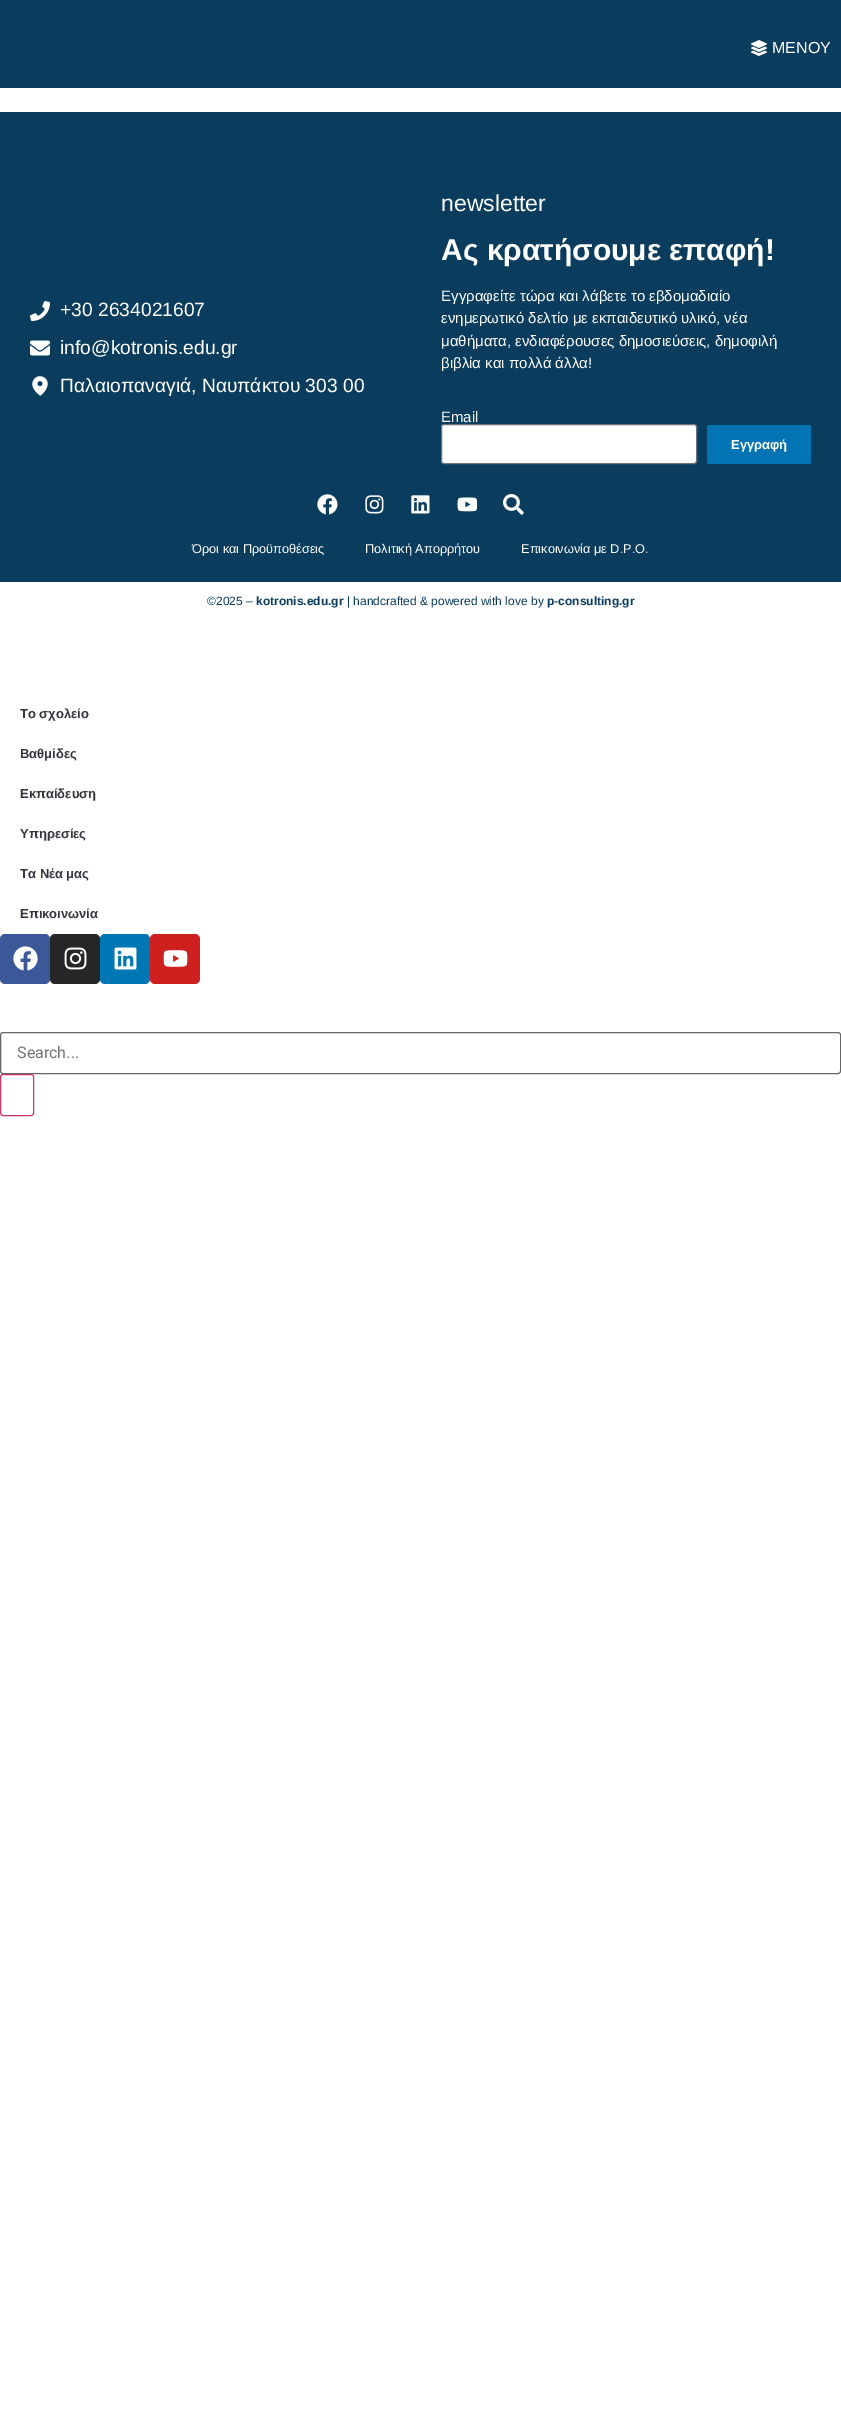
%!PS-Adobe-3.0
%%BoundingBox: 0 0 841 2412
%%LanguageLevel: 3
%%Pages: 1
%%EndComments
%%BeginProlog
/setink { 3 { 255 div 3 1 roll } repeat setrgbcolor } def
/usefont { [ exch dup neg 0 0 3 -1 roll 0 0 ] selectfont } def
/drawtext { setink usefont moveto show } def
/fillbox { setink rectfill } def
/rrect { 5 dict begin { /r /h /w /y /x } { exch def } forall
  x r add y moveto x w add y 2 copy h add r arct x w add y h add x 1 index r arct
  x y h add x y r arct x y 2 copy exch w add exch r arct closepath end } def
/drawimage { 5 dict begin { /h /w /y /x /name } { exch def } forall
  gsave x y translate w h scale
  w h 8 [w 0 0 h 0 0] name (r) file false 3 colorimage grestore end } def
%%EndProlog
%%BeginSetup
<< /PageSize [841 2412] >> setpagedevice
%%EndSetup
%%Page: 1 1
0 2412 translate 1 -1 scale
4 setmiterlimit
0 0 841 2412 255 255 255 fillbox
0 0 841 88 10 60 93 fillbox
(assets/img1.rgb) 751 40 16 16 drawimage
(ΜΕΝΟΥ) 772 53 /LiberationSans-Regular 16 255 255 255 drawtext
0 112 841 470 10 60 93 fillbox
(assets/img2.rgb) 30 301 20 20 drawimage
(+30 2634021607) 60 316 /LiberationSans-Regular 19.25 255 255 255 drawtext
(assets/img3.rgb) 30 340 20 16 drawimage
(info@kotronis.edu.gr) 60 354 /LiberationSans-Regular 19.25 255 255 255 drawtext
(assets/img4.rgb) 32 376 16 20 drawimage
(Παλαιοπαναγιά, Ναυπάκτου 303 00) 60 392 /LiberationSans-Regular 19.25 255 255 255 drawtext
(newsletter) 441 211 /LiberationSans-Regular 23 255 255 255 drawtext
(Ας κρατήσουμε επαφή!) 441 260 /LiberationSans-Bold 30 255 255 255 drawtext
(Εγγραφείτε τώρα και λάβετε το εβδομαδιαίο) 441 301 /LiberationSans-Regular 15 255 255 255 drawtext
(ενημερωτικό δελτίο με εκπαιδευτικό υλικό, νέα) 441 323 /LiberationSans-Regular 15 255 255 255 drawtext
(μαθήματα, ενδιαφέρουσες δημοσιεύσεις, δημοφιλή) 441 346 /LiberationSans-Regular 15 255 255 255 drawtext
(βιβλία και πολλά άλλα!) 441 368 /LiberationSans-Regular 15 255 255 255 drawtext
(Email) 441 422 /LiberationSans-Regular 15 255 255 255 drawtext
441.5 424.5 255 39 2.5 rrect gsave fill grestore
105 114 125 setink
stroke
2 116 179 setink
707 425 104 39 2 rrect fill
(Εγγραφή) 731 449 /LiberationSans-Bold 13 255 255 255 drawtext
(assets/img5.rgb) 317 494 21 21 drawimage
(assets/img6.rgb) 365 495 19 19 drawimage
(assets/img7.rgb) 411 495 19 19 drawimage
(assets/img8.rgb) 457 497 20 15 drawimage
(assets/img9.rgb) 503 494 21 21 drawimage
(Όροι και Προϋποθέσεις) 192 553 /LiberationSans-Regular 12.75 255 255 255 drawtext
(Πολιτική Απορρήτου) 365 553 /LiberationSans-Regular 12.75 255 255 255 drawtext
(Επικοινωνία με D.P.O.) 521 553 /LiberationSans-Regular 12.75 255 255 255 drawtext
(©2025 –) 207 605 /LiberationSans-Regular 12 10 60 93 drawtext
(kotronis.edu.gr) 256 605 /LiberationSans-Bold 12 10 60 93 drawtext
(| handcrafted & powered with love by) 347 605 /LiberationSans-Regular 12 10 60 93 drawtext
(p-consulting.gr) 547 605 /LiberationSans-Bold 12 10 60 93 drawtext
(Το σχολείο) 20 718 /LiberationSans-Bold 13 51 55 61 drawtext
(Βαθμίδες) 20 758 /LiberationSans-Bold 13 51 55 61 drawtext
(Εκπαίδευση) 20 798 /LiberationSans-Bold 13 51 55 61 drawtext
(Υπηρεσίες) 20 838 /LiberationSans-Bold 13 51 55 61 drawtext
(Τα Νέα μας) 20 878 /LiberationSans-Bold 13 51 55 61 drawtext
(Επικοινωνία) 20 918 /LiberationSans-Bold 13 51 55 61 drawtext
59 89 152 setink
0 934 50 50 5 rrect fill
(assets/img10.rgb) 13 946 25 25 drawimage
38 38 38 setink
50 934 50 50 5 rrect fill
(assets/img11.rgb) 64 947 23 23 drawimage
0 119 181 setink
100 934 50 50 5 rrect fill
(assets/img12.rgb) 114 947 23 23 drawimage
205 32 31 setink
150 934 50 50 5 rrect fill
(assets/img13.rgb) 163 950 25 17 drawimage
102 102 102 setink
0.5 1032.5 840 41 2.5 rrect stroke
(Search...) 17 1058 /Roboto-Regular 16 117 117 117 drawtext
204 51 102 setink
0.5 1074.5 33 41 2.5 rrect stroke
showpage
%%EOF
